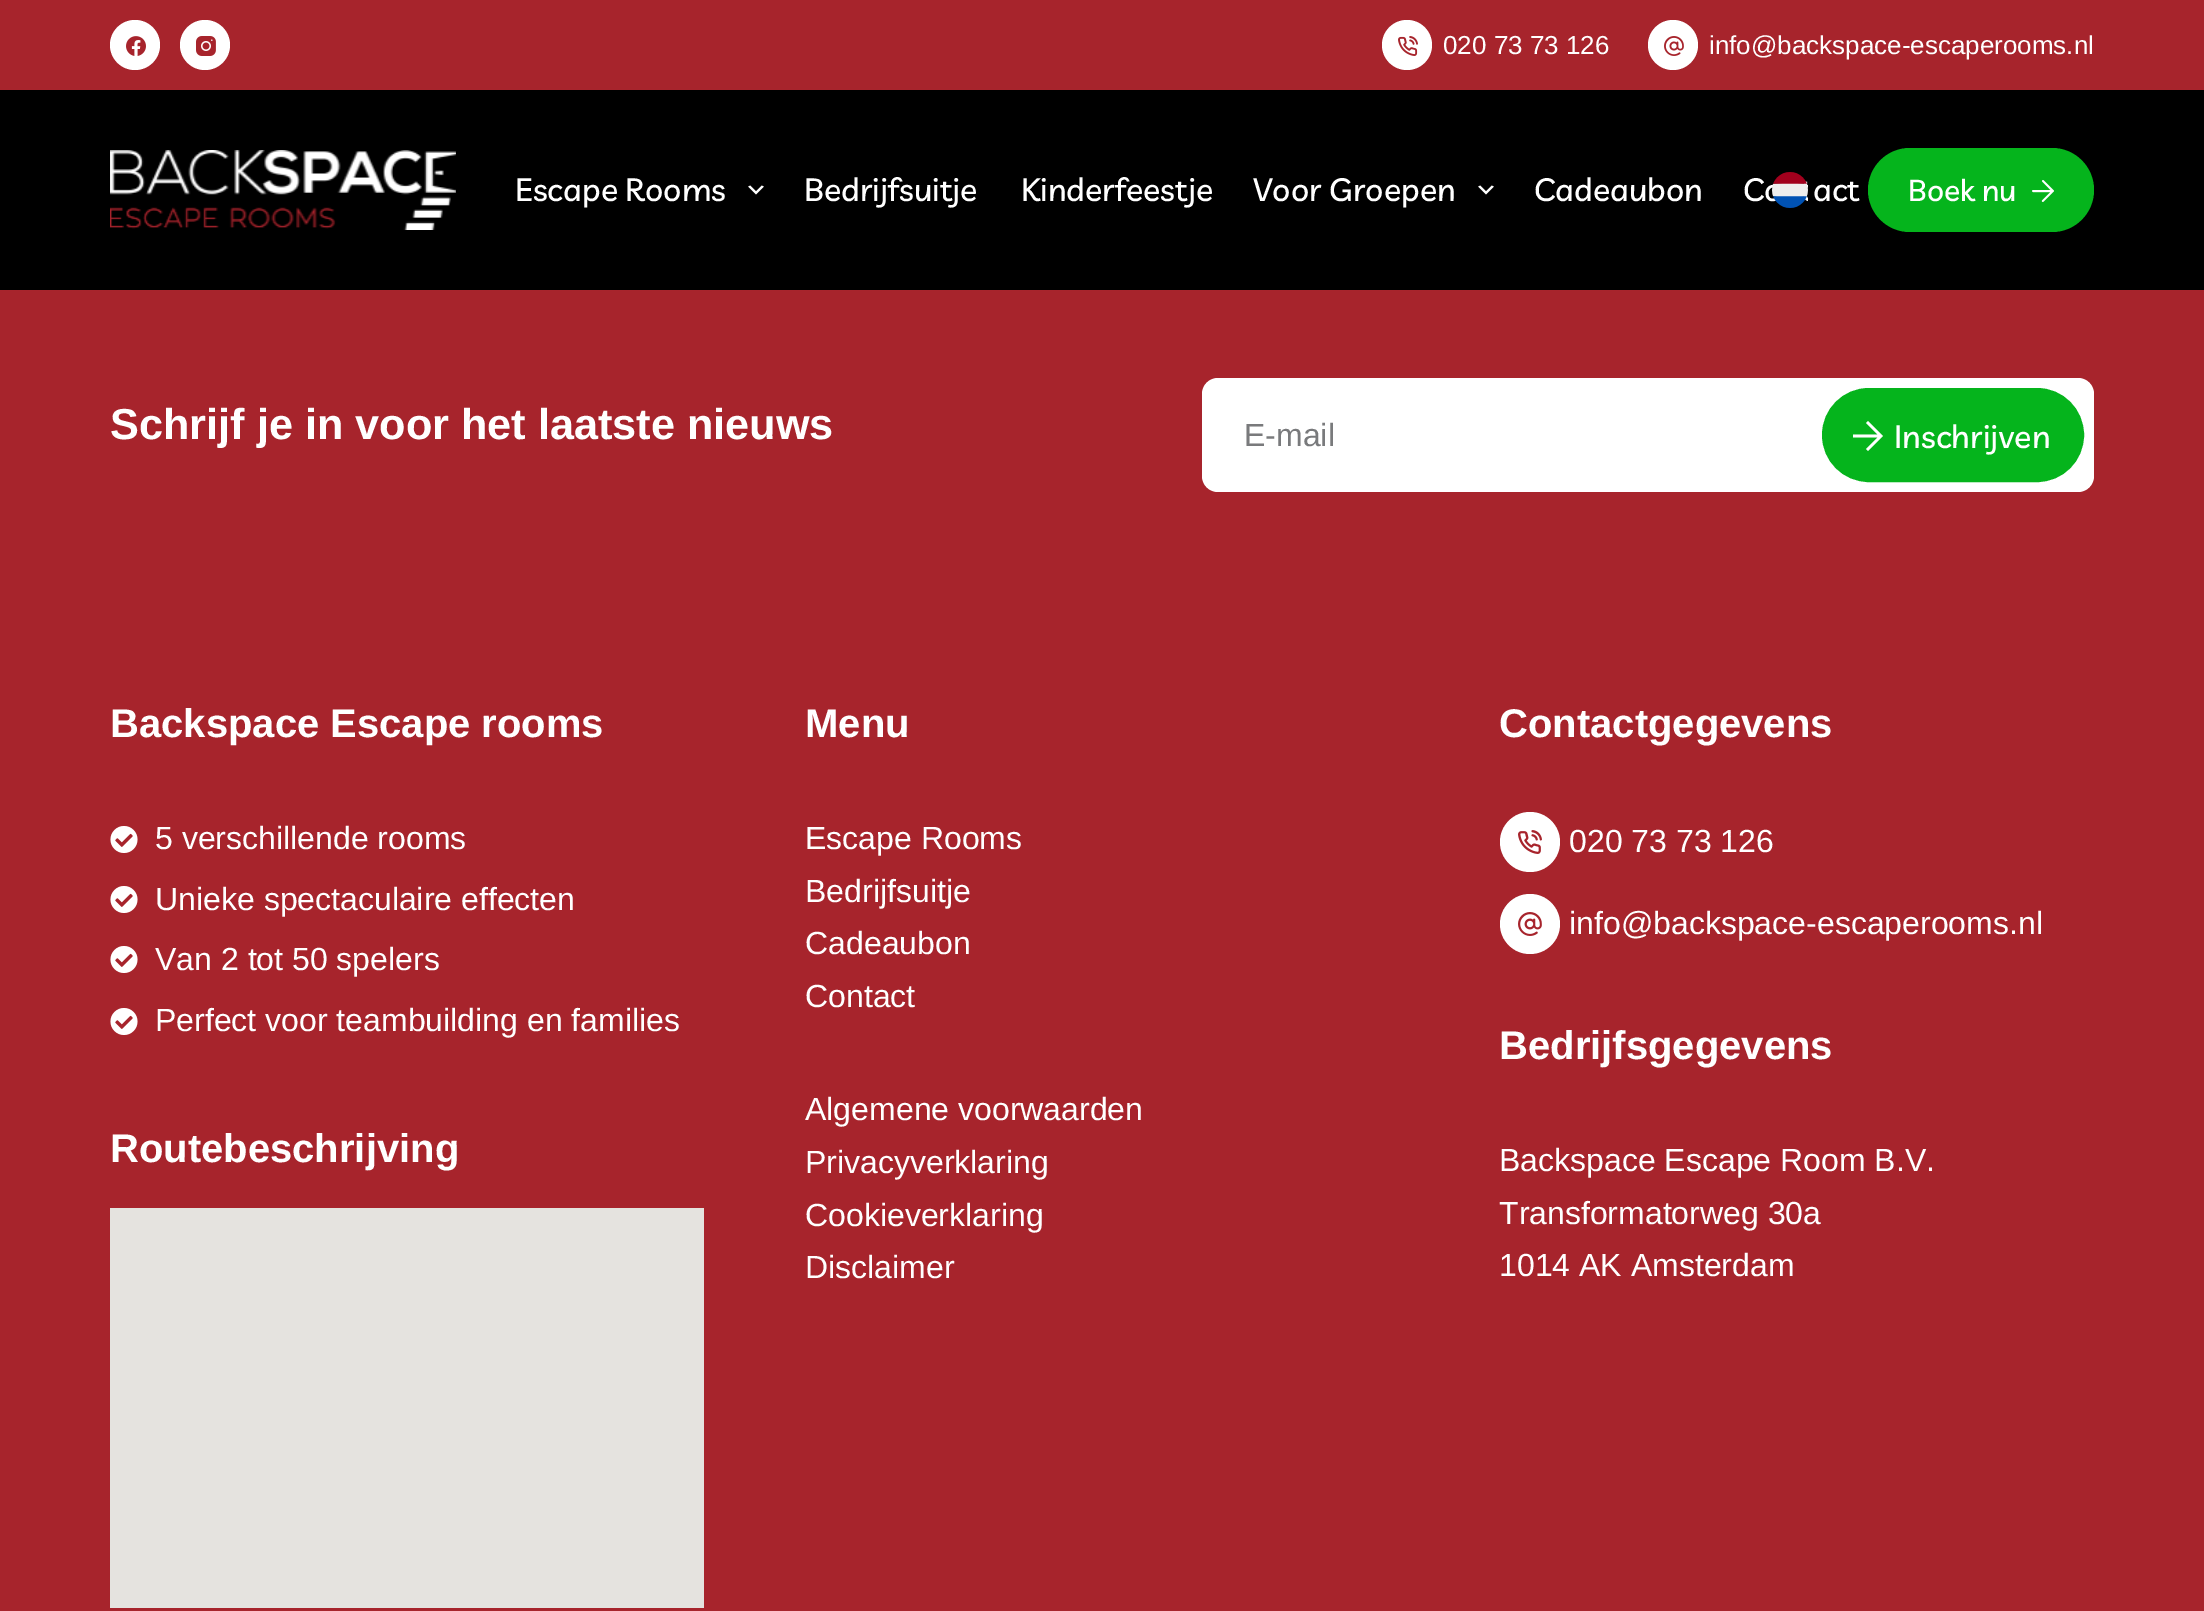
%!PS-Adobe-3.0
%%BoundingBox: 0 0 2204 1611
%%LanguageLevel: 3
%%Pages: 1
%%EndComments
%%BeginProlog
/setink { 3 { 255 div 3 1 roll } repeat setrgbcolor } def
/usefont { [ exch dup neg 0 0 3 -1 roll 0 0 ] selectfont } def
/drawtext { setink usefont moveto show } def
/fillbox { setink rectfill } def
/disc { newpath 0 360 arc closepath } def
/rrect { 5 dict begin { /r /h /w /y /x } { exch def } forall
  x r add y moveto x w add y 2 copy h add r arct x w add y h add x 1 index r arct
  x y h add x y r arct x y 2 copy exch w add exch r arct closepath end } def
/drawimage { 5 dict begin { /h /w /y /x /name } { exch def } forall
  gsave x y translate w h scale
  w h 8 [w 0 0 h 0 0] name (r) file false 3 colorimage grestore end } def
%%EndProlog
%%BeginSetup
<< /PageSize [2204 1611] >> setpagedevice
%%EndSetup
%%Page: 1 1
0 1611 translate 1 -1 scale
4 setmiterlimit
0 0 2204 1611 167 36 44 fillbox
255 255 255 setink
135 45 25 disc fill
(assets/img1.rgb) 126 36 20 20 drawimage
205 45 25 disc fill
(assets/img2.rgb) 196 36 20 20 drawimage
1407 45 25 disc fill
(assets/img3.rgb) 1398 36 20 20 drawimage
(020 73 73 126) 1443 54 /LiberationSans-Regular 26 255 255 255 drawtext
1673 45 25 disc fill
(assets/img4.rgb) 1664 36 20 20 drawimage
(info@backspace-escaperooms.nl) 1709 54 /LiberationSans-Regular 26 255 255 255 drawtext
0 90 2204 200 0 0 0 fillbox
(assets/img5.rgb) 110 150 346 80 drawimage
(Co) 1743 201 /Livvic-Medium 32 255 255 255 drawtext
(assets/img6.rgb) 1772 172 36 36 drawimage
(Escape Rooms) 515 201 /Livvic-Medium 32 255 255 255 drawtext
(assets/img7.rgb) 748 185 16 10 drawimage
(Bedrijfsuitje) 804 201 /Livvic-Medium 32 255 255 255 drawtext
(Kinderfeestje) 1021 201 /Livvic-Medium 32 255 255 255 drawtext
(Voor Groepen) 1253 201 /Livvic-Medium 32 255 255 255 drawtext
(assets/img7.rgb) 1478 185 16 10 drawimage
(Cadeaubon) 1534 201 /Livvic-Medium 32 255 255 255 drawtext
(act) 1813 201 /Livvic-Medium 32 255 255 255 drawtext
5 180 28 setink
1868 148 226 84 42 rrect fill
(Boek nu) 1908 201 /Livvic-Medium 30 255 255 255 drawtext
(assets/img8.rgb) 2032 180 22 22 drawimage
(Schrijf je in voor het laatste nieuws) 110 439 /LiberationSans-Bold 43.25 255 255 255 drawtext
1202 378 892 114 16 rrect fill
(E-mail) 1244 446 /LiberationSans-Regular 32 121 122 124 drawtext
5 180 28 setink
1823 389 260 92 46 rrect gsave fill grestore
2 setlinewidth
stroke
255 255 255 setink
1877.5 434.5 moveto 1866 423 lineto 1868 421 lineto 1883 436 lineto 1868 451 lineto 1866 449 lineto 1877.5 437.5 lineto 1853 437.5 lineto 1853 434.5 lineto closepath fill
(Inschrijven) 1894 448 /Livvic-Medium 32 255 255 255 drawtext
(Backspace Escape rooms) 110 737 /LiberationSans-Bold 40 255 255 255 drawtext
(assets/img9.rgb) 110 826 28 27 drawimage
(5 verschillende rooms) 155 849 /LiberationSans-Regular 32 255 255 255 drawtext
(assets/img9.rgb) 110 886 28 27 drawimage
(Unieke spectaculaire effecten) 155 910 /LiberationSans-Regular 32 255 255 255 drawtext
(assets/img9.rgb) 110 946 28 27 drawimage
(Van 2 tot 50 spelers) 155 970 /LiberationSans-Regular 32 255 255 255 drawtext
(assets/img9.rgb) 110 1008 28 27 drawimage
(Perfect voor teambuilding en families) 155 1031 /LiberationSans-Regular 32 255 255 255 drawtext
(Routebeschrijving) 110 1162 /LiberationSans-Bold 40 255 255 255 drawtext
110 1208 594 400 229 227 223 fillbox
(Menu) 805 737 /LiberationSans-Bold 40 255 255 255 drawtext
(Escape Rooms) 805 849 /LiberationSans-Regular 32 255 255 255 drawtext
(Bedrijfsuitje) 805 902 /LiberationSans-Regular 32 255 255 255 drawtext
(Cadeaubon) 805 954 /LiberationSans-Regular 32 255 255 255 drawtext
(Contact) 805 1007 /LiberationSans-Regular 32 255 255 255 drawtext
(Algemene voorwaarden) 805 1120 /LiberationSans-Regular 32 255 255 255 drawtext
(Privacyverklaring) 805 1173 /LiberationSans-Regular 32 255 255 255 drawtext
(Cookieverklaring) 805 1226 /LiberationSans-Regular 32 255 255 255 drawtext
(Disclaimer) 805 1278 /LiberationSans-Regular 32 255 255 255 drawtext
(Contactgegevens) 1499 737 /LiberationSans-Bold 40 255 255 255 drawtext
1530 842 30 disc fill
(assets/img10.rgb) 1518 830 24 24 drawimage
(020 73 73 126) 1569 852 /LiberationSans-Regular 32 255 255 255 drawtext
1530 924 30 disc fill
(assets/img11.rgb) 1518 912 24 24 drawimage
(info@backspace-escaperooms.nl) 1569 934 /LiberationSans-Regular 32 255 255 255 drawtext
(Bedrijfsgegevens) 1499 1059 /LiberationSans-Bold 40 255 255 255 drawtext
(Backspace Escape Room B.V.) 1499 1171 /LiberationSans-Regular 32 255 255 255 drawtext
(Transformatorweg 30a) 1499 1224 /LiberationSans-Regular 32 255 255 255 drawtext
(1014 AK Amsterdam) 1499 1276 /LiberationSans-Regular 32 255 255 255 drawtext
showpage
%%EOF
